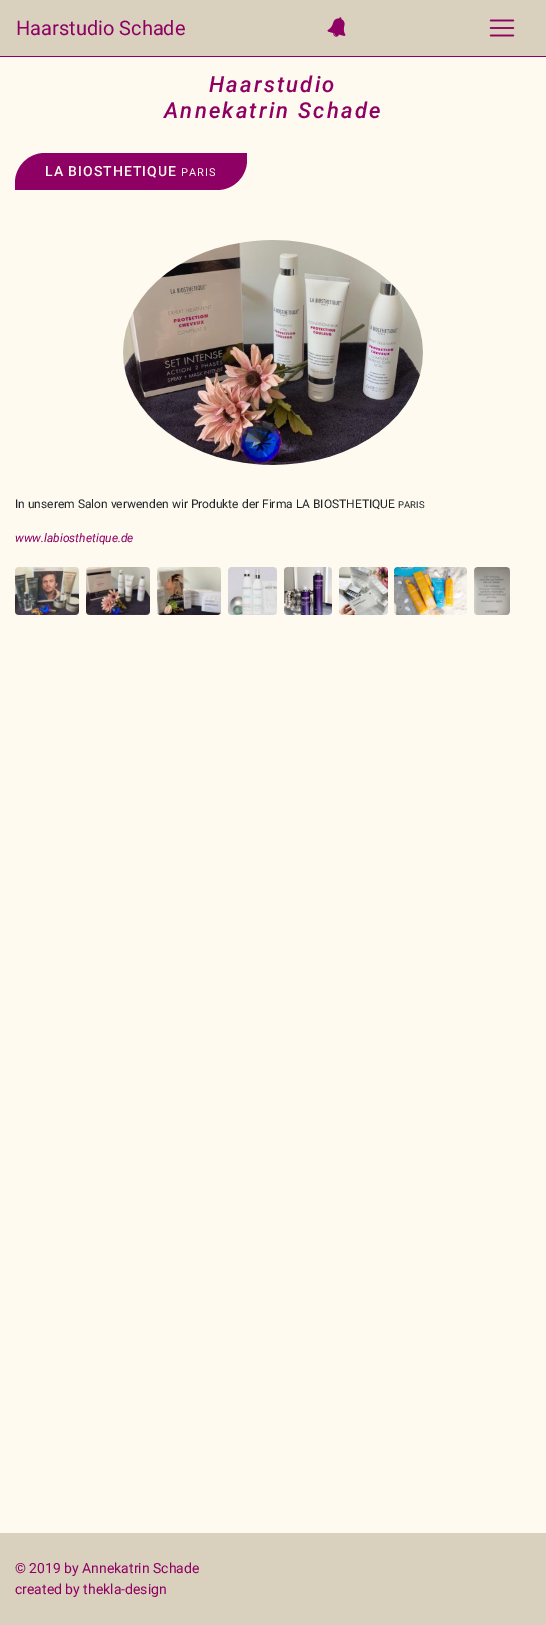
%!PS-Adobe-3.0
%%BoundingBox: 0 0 546 1625
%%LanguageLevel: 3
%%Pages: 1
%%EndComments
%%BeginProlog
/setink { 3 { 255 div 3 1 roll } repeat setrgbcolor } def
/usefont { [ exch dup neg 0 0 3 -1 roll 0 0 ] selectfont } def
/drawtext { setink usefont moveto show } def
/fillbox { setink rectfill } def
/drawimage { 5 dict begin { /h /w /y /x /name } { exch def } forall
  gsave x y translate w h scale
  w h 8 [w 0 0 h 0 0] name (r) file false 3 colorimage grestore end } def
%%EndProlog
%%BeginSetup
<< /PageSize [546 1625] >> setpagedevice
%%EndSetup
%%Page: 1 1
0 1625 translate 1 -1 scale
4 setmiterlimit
0 0 546 1625 255 250 240 fillbox
0 0 546 56 218 208 190 fillbox
0 56 546 1 142 0 99 fillbox
(Haarstudio Schade) 16 35 /Roboto-Regular 20 142 0 99 drawtext
(assets/img1.rgb) 327 17 19 20 drawimage
(assets/img2.rgb) 489 19 26 18 drawimage
/Roboto-MediumItalic 22 usefont
209 92 moveto 2.25 0 (Haarstudio) ashow
164 118 moveto 2.25 0 (Annekatrin Schade) ashow
45 153 moveto 247 153 lineto 247 160 lineto 247 176.5 233.5 190 217 190 curveto 15 190 lineto 15 183 lineto 15 166.5 28.5 153 45 153 curveto closepath fill
/Roboto-Medium 14 usefont
255 250 240 setink
45 176 moveto 1 0 (LA BIOSTHETIQUE) ashow
/Roboto-Regular 11 usefont
181 176 moveto 1 0 (PARIS) ashow
(assets/img3.rgb) 123 240 300 225 drawimage
(In unserem Salon verwenden wir Produkte der Firma LA BIOSTHETIQUE) 15 508 /Roboto-Regular 12 33 37 41 drawtext
(PARIS) 398 508 /Roboto-Regular 9.5 33 37 41 drawtext
(www.labiosthetique.de) 15 542 /Roboto-Italic 12 142 0 99 drawtext
(assets/img4.rgb) 15 567 64 48 drawimage
(assets/img5.rgb) 86 567 64 48 drawimage
(assets/img6.rgb) 157 567 64 48 drawimage
(assets/img7.rgb) 228 567 49 48 drawimage
(assets/img8.rgb) 284 567 48 48 drawimage
(assets/img9.rgb) 339 567 49 48 drawimage
(assets/img10.rgb) 394 567 73 48 drawimage
(assets/img11.rgb) 474 567 36 48 drawimage
0 1533 546 92 218 208 190 fillbox
(© 2019 by Annekatrin Schade) 15 1573 /Roboto-Regular 14 142 0 99 drawtext
(created by thekla-design) 15 1594 /Roboto-Regular 14 142 0 99 drawtext
showpage
%%EOF
